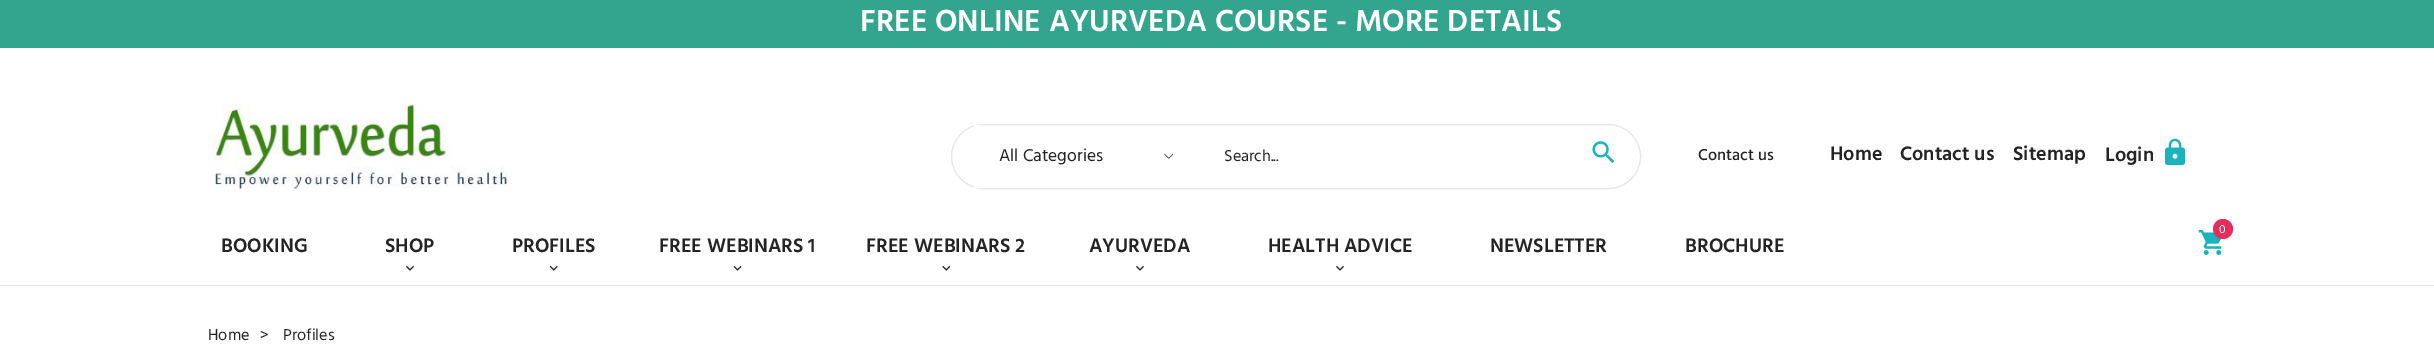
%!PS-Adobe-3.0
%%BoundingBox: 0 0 2434 355
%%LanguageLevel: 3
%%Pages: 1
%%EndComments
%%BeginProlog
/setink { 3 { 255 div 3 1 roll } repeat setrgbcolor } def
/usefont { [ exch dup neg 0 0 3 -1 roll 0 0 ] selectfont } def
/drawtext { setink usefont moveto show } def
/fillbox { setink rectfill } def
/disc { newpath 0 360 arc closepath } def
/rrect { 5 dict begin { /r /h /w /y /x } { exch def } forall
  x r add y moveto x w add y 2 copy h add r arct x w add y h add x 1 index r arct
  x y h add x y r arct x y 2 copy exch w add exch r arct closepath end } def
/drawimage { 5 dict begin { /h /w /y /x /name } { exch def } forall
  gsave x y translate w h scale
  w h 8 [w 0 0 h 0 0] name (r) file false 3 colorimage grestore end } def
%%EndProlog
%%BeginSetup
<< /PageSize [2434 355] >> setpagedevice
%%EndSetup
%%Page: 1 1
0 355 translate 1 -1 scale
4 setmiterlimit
0 0 2434 355 255 255 255 fillbox
0 285 2434 1 229 229 229 fillbox
0 0 2434 48 51 165 142 fillbox
(FREE ONLINE AYURVEDA COURSE - MORE DETAILS) 860 31 /Hind-SemiBold 31.25 255 255 255 drawtext
(assets/img1.rgb) 207 103 301 87 drawimage
229 229 229 setink
951.5 124.5 689 64 32 rrect stroke
974 125 8 63 255 255 255 fillbox
(assets/img2.rgb) 1164 153 10 6 drawimage
(All Categories) 999 161 /Hind-Regular 17.5 36 36 36 drawtext
(Search...) 1224 161 /Hind-Regular 16.25 36 36 36 drawtext
(assets/img3.rgb) 1592 141 23 22 drawimage
(Contact us) 1698 160 /Hind-Medium 16.25 36 36 36 drawtext
(Home) 1830 160 /Hind-SemiBold 20 36 36 36 drawtext
(Contact us) 1900 160 /Hind-SemiBold 20 36 36 36 drawtext
(Sitemap) 2013 160 /Hind-SemiBold 20 36 36 36 drawtext
(Login) 2105 161 /Hind-SemiBold 20 36 36 36 drawtext
(assets/img4.rgb) 2165 138 20 27 drawimage
(assets/img5.rgb) 2198 230 24 25 drawimage
231 44 89 setink
2223 229 10 disc fill
(0) 2219 233 /Hind-Regular 12 255 255 255 drawtext
(BOOKING) 221 252 /Hind-SemiBold 20 36 36 36 drawtext
(SHOP) 385 252 /Hind-SemiBold 20 36 36 36 drawtext
(assets/img6.rgb) 406 265 8 6 drawimage
(PROFILES) 512 252 /Hind-SemiBold 20 36 36 36 drawtext
(assets/img7.rgb) 549 265 9 6 drawimage
(FREE WEBINARS 1) 659 252 /Hind-SemiBold 20 36 36 36 drawtext
(assets/img8.rgb) 733 265 9 6 drawimage
(FREE WEBINARS 2) 866 252 /Hind-SemiBold 20 36 36 36 drawtext
(assets/img9.rgb) 942 265 9 6 drawimage
(AYURVEDA) 1089 252 /Hind-SemiBold 20 36 36 36 drawtext
(assets/img6.rgb) 1136 265 8 6 drawimage
(HEALTH ADVICE) 1268 252 /Hind-SemiBold 20 36 36 36 drawtext
(assets/img6.rgb) 1336 265 8 6 drawimage
(NEWSLETTER) 1490 252 /Hind-SemiBold 20 36 36 36 drawtext
(BROCHURE) 1685 252 /Hind-SemiBold 20 36 36 36 drawtext
(Home) 208 340 /Hind-Regular 16.25 36 36 36 drawtext
(>) 260 340 /Hind-Regular 16.25 36 36 36 drawtext
(Profiles) 283 340 /Hind-Regular 16.25 36 36 36 drawtext
showpage
%%EOF
